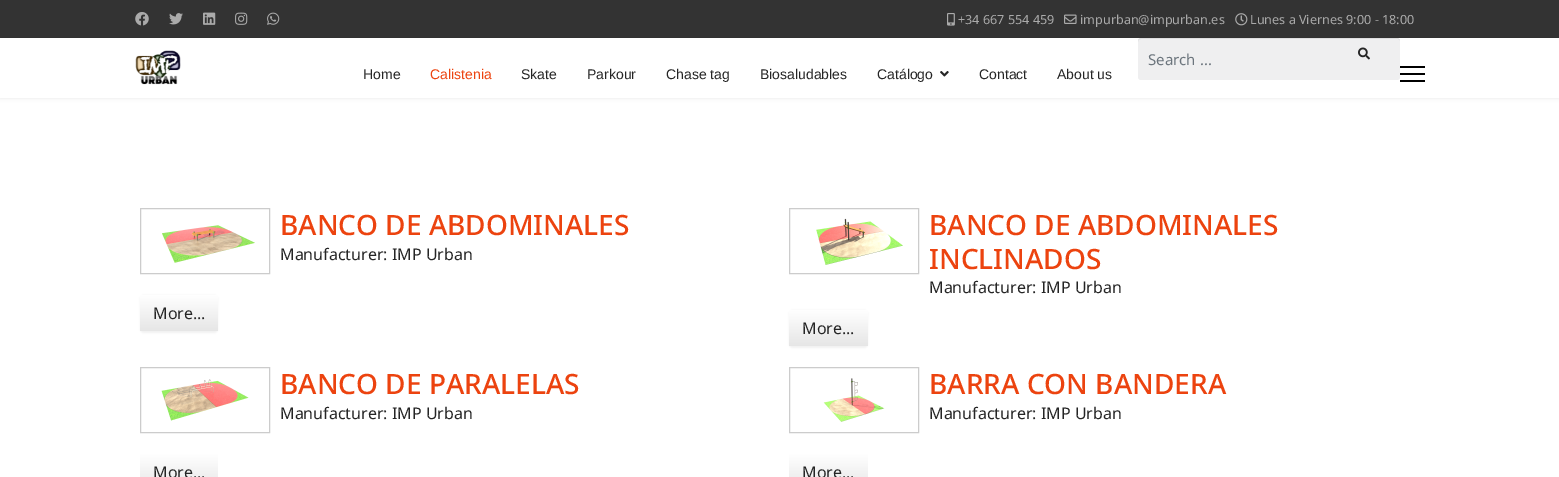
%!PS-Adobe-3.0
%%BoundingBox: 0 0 1559 477
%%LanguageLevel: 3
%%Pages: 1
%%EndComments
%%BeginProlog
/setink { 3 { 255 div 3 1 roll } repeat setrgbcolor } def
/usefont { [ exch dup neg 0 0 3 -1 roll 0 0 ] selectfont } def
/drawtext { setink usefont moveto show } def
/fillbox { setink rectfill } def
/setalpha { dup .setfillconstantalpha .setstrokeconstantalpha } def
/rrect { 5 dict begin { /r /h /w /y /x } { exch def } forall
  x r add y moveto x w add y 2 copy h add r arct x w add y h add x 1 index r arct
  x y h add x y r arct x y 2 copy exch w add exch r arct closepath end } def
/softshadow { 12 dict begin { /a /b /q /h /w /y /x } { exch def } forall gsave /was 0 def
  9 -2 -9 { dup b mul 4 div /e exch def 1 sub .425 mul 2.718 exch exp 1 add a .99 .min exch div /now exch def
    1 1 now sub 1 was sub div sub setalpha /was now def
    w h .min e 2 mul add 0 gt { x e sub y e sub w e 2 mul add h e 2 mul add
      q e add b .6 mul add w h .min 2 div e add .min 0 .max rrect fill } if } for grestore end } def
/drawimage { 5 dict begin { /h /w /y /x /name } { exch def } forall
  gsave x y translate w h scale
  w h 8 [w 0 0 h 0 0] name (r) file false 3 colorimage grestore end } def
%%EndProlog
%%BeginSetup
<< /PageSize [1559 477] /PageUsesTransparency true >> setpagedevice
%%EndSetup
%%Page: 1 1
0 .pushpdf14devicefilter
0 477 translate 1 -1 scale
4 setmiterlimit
0 0 1559 477 255 255 255 fillbox
0 0 1559 38 51 51 51 fillbox
(assets/img1.rgb) 135 12 14 14 drawimage
(assets/img2.rgb) 169 13 14 12 drawimage
(assets/img3.rgb) 203 12 13 13 drawimage
(assets/img4.rgb) 235 12 13 13 drawimage
(assets/img5.rgb) 267 12 13 13 drawimage
(assets/img6.rgb) 947 13 8 13 drawimage
(+34 667 554 459) 958 24 /NotoSans-Regular 12.6 170 170 170 drawtext
(assets/img7.rgb) 1064 14 13 10 drawimage
(impurban@impurban.es) 1080 24 /NotoSans-Regular 12.6 170 170 170 drawtext
(assets/img8.rgb) 1235 13 13 13 drawimage
(Lunes a Viernes 9:00 - 18:00) 1250 24 /NotoSans-Regular 12.6 170 170 170 drawtext
gsave
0 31 moveto 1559 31 lineto 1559 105 lineto 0 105 lineto closepath 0 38 moveto 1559 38 lineto 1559 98 lineto 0 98 lineto closepath eoclip newpath
0 0 0 setink
0 38 1559 60 0 2 0.1 softshadow
grestore
(assets/img9.rgb) 135 50 46 35 drawimage
239 239 240 setink
1138 38 262 42 3 rrect fill
0.07 setalpha
0 0 0 setink
1141 39 moveto 1398 39 lineto 1400 40 lineto 1400 42 lineto 1400 41 lineto 1400 39 1399 38 1397 38 curveto 1141 38 lineto 1139 38 1138 39 1138 41 curveto 1138 42 lineto 1138 40 1139 39 1141 39 curveto closepath fill
1 setalpha
(Search ...) 1148 65 /NotoSans-Regular 15 108 117 125 drawtext
(assets/img10.rgb) 1358 47 12 13 drawimage
(Home) 363 79 /LiberationSans-Regular 14 37 37 37 drawtext
(Calistenia) 430 79 /LiberationSans-Regular 14 236 67 15 drawtext
(Skate) 521 79 /LiberationSans-Regular 14 37 37 37 drawtext
(Parkour) 587 79 /LiberationSans-Regular 14 37 37 37 drawtext
(Chase tag) 666 79 /LiberationSans-Regular 14 37 37 37 drawtext
(Biosaludables) 760 79 /LiberationSans-Regular 14 37 37 37 drawtext
(Catálogo) 877 79 /LiberationSans-Regular 14 37 37 37 drawtext
(assets/img11.rgb) 940 71 9 6 drawimage
(Contact) 979 79 /LiberationSans-Regular 14 37 37 37 drawtext
(About us) 1057 79 /LiberationSans-Regular 14 37 37 37 drawtext
1400 66 25 2 0 0 0 fillbox
1400 73 25 2 0 0 0 fillbox
1400 80 25 2 0 0 0 fillbox
204 204 204 setink
140.5 208.5 129 65 rectstroke
(assets/img12.rgb) 162 225 93 38 drawimage
(BANCO DE ABDOMINALES) 280 235 /NotoSans-Medium 28 236 67 15 drawtext
(Manufacturer: IMP Urban) 280 260 /NotoSans-Regular 16 37 37 37 drawtext
0 0 0 setink
140 295 78 38 4 1 0.05 softshadow
gsave
140 294 78 38 4 rrect clip newpath
gsave 140 295 moveto 218 295 lineto 218 331 lineto 140 331 lineto closepath clip newpath
<< /ShadingType 2 /ColorSpace /DeviceRGB /Coords [179 295 179 331] /Extend [true true] /Function << /FunctionType 2 /Domain [0 1] /C0 [1 1 1] /C1 [0.902 0.902 0.902] /N 1 >> >> shfill grestore
grestore
(More...) 153 319 /NotoSans-Regular 16 37 37 37 drawtext
204 204 204 setink
789.5 208.5 129 65 rectstroke
(assets/img13.rgb) 816 218 87 47 drawimage
(BANCO DE ABDOMINALES) 929 235 /NotoSans-Medium 28 236 67 15 drawtext
(INCLINADOS) 929 269 /NotoSans-Medium 28 236 67 15 drawtext
(Manufacturer: IMP Urban) 929 293 /NotoSans-Regular 16 37 37 37 drawtext
0 0 0 setink
789 310 79 38 4 1 0.05 softshadow
gsave
789 309 79 38 4 rrect clip newpath
gsave 789 310 moveto 868 310 lineto 868 346 lineto 789 346 lineto closepath clip newpath
<< /ShadingType 2 /ColorSpace /DeviceRGB /Coords [829 310 829 346] /Extend [true true] /Function << /FunctionType 2 /Domain [0 1] /C0 [1 1 1] /C1 [0.902 0.902 0.902] /N 1 >> >> shfill grestore
grestore
(More...) 802 334 /NotoSans-Regular 16 37 37 37 drawtext
204 204 204 setink
140.5 367.5 129 65 rectstroke
(assets/img14.rgb) 161 379 88 42 drawimage
(BANCO DE PARALELAS) 280 394 /NotoSans-Medium 28 236 67 15 drawtext
(Manufacturer: IMP Urban) 280 419 /NotoSans-Regular 16 37 37 37 drawtext
gsave
140 453 78 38 4 rrect clip newpath
gsave 140 454 moveto 218 454 lineto 218 477 lineto 140 477 lineto closepath clip newpath
<< /ShadingType 2 /ColorSpace /DeviceRGB /Coords [179 454 179 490] /Extend [true true] /Function << /FunctionType 2 /Domain [0 1] /C0 [1 1 1] /C1 [0.902 0.902 0.902] /N 1 >> >> shfill grestore
grestore
(More...) 153 478 /NotoSans-Regular 16 37 37 37 drawtext
204 204 204 setink
789.5 367.5 129 65 rectstroke
(assets/img15.rgb) 823 378 62 44 drawimage
(BARRA CON BANDERA) 929 394 /NotoSans-Medium 28 236 67 15 drawtext
(Manufacturer: IMP Urban) 929 419 /NotoSans-Regular 16 37 37 37 drawtext
gsave
789 453 79 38 4 rrect clip newpath
gsave 789 454 moveto 868 454 lineto 868 477 lineto 789 477 lineto closepath clip newpath
<< /ShadingType 2 /ColorSpace /DeviceRGB /Coords [829 454 829 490] /Extend [true true] /Function << /FunctionType 2 /Domain [0 1] /C0 [1 1 1] /C1 [0.902 0.902 0.902] /N 1 >> >> shfill grestore
grestore
(More...) 802 478 /NotoSans-Regular 16 37 37 37 drawtext
.poppdf14devicefilter showpage
%%EOF
